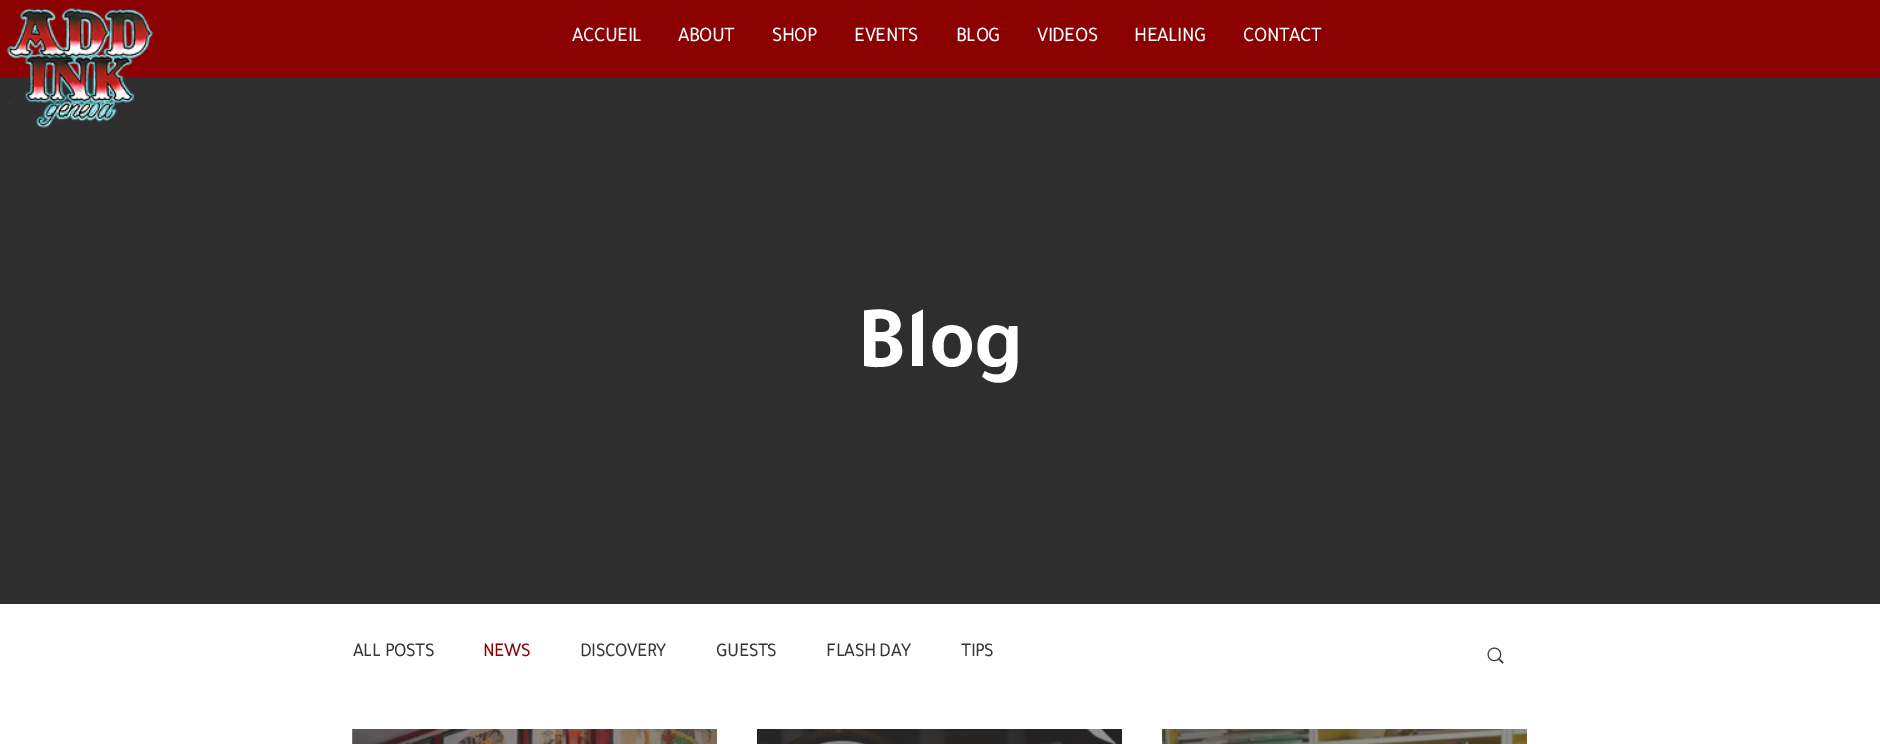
%!PS-Adobe-3.0
%%BoundingBox: 0 0 1880 744
%%LanguageLevel: 3
%%Pages: 1
%%EndComments
%%BeginProlog
/setink { 3 { 255 div 3 1 roll } repeat setrgbcolor } def
/usefont { [ exch dup neg 0 0 3 -1 roll 0 0 ] selectfont } def
/drawtext { setink usefont moveto show } def
/fillbox { setink rectfill } def
/drawimage { 5 dict begin { /h /w /y /x /name } { exch def } forall
  gsave x y translate w h scale
  w h 8 [w 0 0 h 0 0] name (r) file false 3 colorimage grestore end } def
%%EndProlog
%%BeginSetup
<< /PageSize [1880 744] >> setpagedevice
%%EndSetup
%%Page: 1 1
0 744 translate 1 -1 scale
4 setmiterlimit
0 0 1880 744 255 255 255 fillbox
0 0 1880 78 139 0 0 fillbox
0 78 1880 526 47 46 46 fillbox
(assets/img1.rgb) 7 7 147 121 drawimage
(ACCUEIL) 572 41 /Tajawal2-Bold 20 255 255 255 drawtext
(ABOUT) 678 41 /Tajawal2-Bold 20 255 255 255 drawtext
(SHOP) 772 41 /Tajawal2-Bold 20 255 255 255 drawtext
(EVENTS) 854 41 /Tajawal2-Bold 20 255 255 255 drawtext
(BLOG) 956 41 /Tajawal2-Bold 20 255 255 255 drawtext
(VIDEOS) 1037 41 /Tajawal2-Bold 20 255 255 255 drawtext
(HEALING) 1134 41 /Tajawal2-Bold 20 255 255 255 drawtext
(CONTACT) 1243 41 /Tajawal2-Bold 20 255 255 255 drawtext
(Blog) 857 366 /Tajawal-Bold 88 255 255 255 drawtext
(ALL POSTS) 353 656 /Tajawal2-Bold 18.75 54 54 54 drawtext
(NEWS) 483 656 /Tajawal2-Bold 18.75 139 0 0 drawtext
(DISCOVERY) 580 656 /Tajawal2-Bold 18.75 54 54 54 drawtext
(GUESTS) 716 656 /Tajawal2-Bold 18.75 54 54 54 drawtext
(FLASH DAY) 826 656 /Tajawal2-Bold 18.75 54 54 54 drawtext
(TIPS) 961 656 /Tajawal2-Bold 18.75 54 54 54 drawtext
(assets/img2.rgb) 1487 647 17 17 drawimage
(assets/img3.rgb) 352 729 365 15 drawimage
(assets/img4.rgb) 757 729 365 15 drawimage
(assets/img5.rgb) 1162 729 365 15 drawimage
showpage
%%EOF
